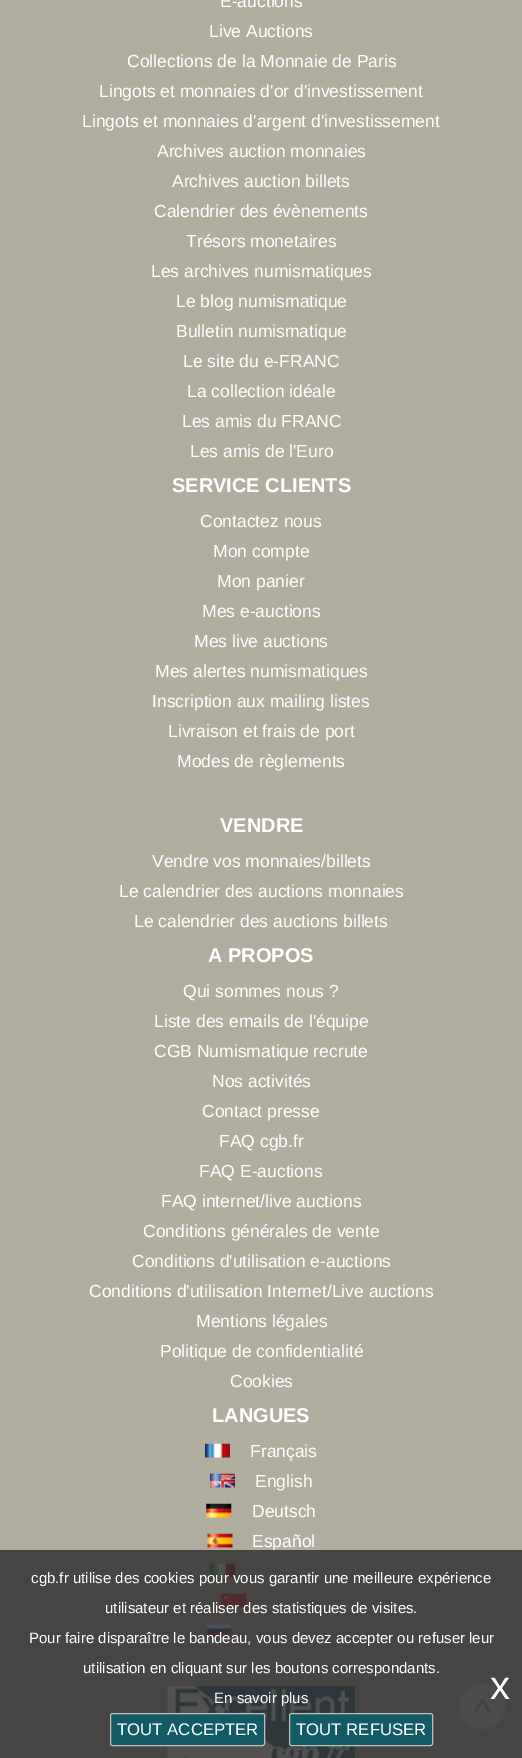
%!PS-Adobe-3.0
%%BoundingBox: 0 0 522 1758
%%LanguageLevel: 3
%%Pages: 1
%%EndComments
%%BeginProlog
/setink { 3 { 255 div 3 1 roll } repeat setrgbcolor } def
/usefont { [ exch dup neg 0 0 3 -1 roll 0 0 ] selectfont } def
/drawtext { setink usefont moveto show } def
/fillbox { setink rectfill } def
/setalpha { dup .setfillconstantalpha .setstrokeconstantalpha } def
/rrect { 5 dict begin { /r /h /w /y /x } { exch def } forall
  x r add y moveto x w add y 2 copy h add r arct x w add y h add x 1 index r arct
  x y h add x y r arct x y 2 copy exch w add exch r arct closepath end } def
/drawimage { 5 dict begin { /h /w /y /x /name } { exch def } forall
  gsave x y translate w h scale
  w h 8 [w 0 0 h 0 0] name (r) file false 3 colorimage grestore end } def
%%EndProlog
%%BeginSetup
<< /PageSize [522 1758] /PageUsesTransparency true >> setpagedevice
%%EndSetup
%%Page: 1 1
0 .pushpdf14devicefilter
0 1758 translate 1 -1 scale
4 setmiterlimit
0 0 522 1758 177 173 159 fillbox
(E-auctions) 220 7 /LiberationSans-Regular 17.5 255 255 255 drawtext
(Live Auctions) 209 37 /LiberationSans-Regular 17.5 255 255 255 drawtext
(Collections de la Monnaie de Paris) 127 67 /LiberationSans-Regular 17.5 255 255 255 drawtext
(Lingots et monnaies d'or d'investissement) 99 97 /LiberationSans-Regular 17.5 255 255 255 drawtext
(Lingots et monnaies d'argent d'investissement) 82 127 /LiberationSans-Regular 17.5 255 255 255 drawtext
(Archives auction monnaies) 157 157 /LiberationSans-Regular 17.5 255 255 255 drawtext
(Archives auction billets) 172 187 /LiberationSans-Regular 17.5 255 255 255 drawtext
(Calendrier des évènements) 154 217 /LiberationSans-Regular 17.5 255 255 255 drawtext
(Trésors monetaires) 186 247 /LiberationSans-Regular 17.5 255 255 255 drawtext
(Les archives numismatiques) 151 277 /LiberationSans-Regular 17.5 255 255 255 drawtext
(Le blog numismatique) 176 307 /LiberationSans-Regular 17.5 255 255 255 drawtext
(Bulletin numismatique) 176 337 /LiberationSans-Regular 17.5 255 255 255 drawtext
(Le site du e-FRANC) 183 367 /LiberationSans-Regular 17.5 255 255 255 drawtext
(La collection idéale) 187 397 /LiberationSans-Regular 17.5 255 255 255 drawtext
(Les amis du FRANC) 182 427 /LiberationSans-Regular 17.5 255 255 255 drawtext
(Les amis de l'Euro) 190 457 /LiberationSans-Regular 17.5 255 255 255 drawtext
(SERVICE CLIENTS) 172 492 /LiberationSans-Bold 20 255 255 255 drawtext
(Contactez nous) 200 527 /LiberationSans-Regular 17.5 255 255 255 drawtext
(Mon compte) 213 557 /LiberationSans-Regular 17.5 255 255 255 drawtext
(Mon panier) 217 587 /LiberationSans-Regular 17.5 255 255 255 drawtext
(Mes e-auctions) 202 617 /LiberationSans-Regular 17.5 255 255 255 drawtext
(Mes live auctions) 194 647 /LiberationSans-Regular 17.5 255 255 255 drawtext
(Mes alertes numismatiques) 155 677 /LiberationSans-Regular 17.5 255 255 255 drawtext
(Inscription aux mailing listes) 152 707 /LiberationSans-Regular 17.5 255 255 255 drawtext
(Livraison et frais de port) 168 737 /LiberationSans-Regular 17.5 255 255 255 drawtext
(Modes de règlements) 177 767 /LiberationSans-Regular 17.5 255 255 255 drawtext
(VENDRE) 220 832 /LiberationSans-Bold 20 255 255 255 drawtext
(Vendre vos monnaies/billets) 152 867 /LiberationSans-Regular 17.5 255 255 255 drawtext
(Le calendrier des auctions monnaies) 119 897 /LiberationSans-Regular 17.5 255 255 255 drawtext
(Le calendrier des auctions billets) 134 927 /LiberationSans-Regular 17.5 255 255 255 drawtext
(A PROPOS) 208 962 /LiberationSans-Bold 20 255 255 255 drawtext
(Qui sommes nous ?) 183 997 /LiberationSans-Regular 17.5 255 255 255 drawtext
(Liste des emails de l'équipe) 154 1027 /LiberationSans-Regular 17.5 255 255 255 drawtext
(CGB Numismatique recrute) 154 1057 /LiberationSans-Regular 17.5 255 255 255 drawtext
(Nos activités) 212 1087 /LiberationSans-Regular 17.5 255 255 255 drawtext
(Contact presse) 202 1117 /LiberationSans-Regular 17.5 255 255 255 drawtext
(FAQ cgb.fr) 219 1147 /LiberationSans-Regular 17.5 255 255 255 drawtext
(FAQ E-auctions) 199 1177 /LiberationSans-Regular 17.5 255 255 255 drawtext
(FAQ internet/live auctions) 161 1207 /LiberationSans-Regular 17.5 255 255 255 drawtext
(Conditions générales de vente) 143 1237 /LiberationSans-Regular 17.5 255 255 255 drawtext
(Conditions d'utilisation e-auctions) 132 1267 /LiberationSans-Regular 17.5 255 255 255 drawtext
(Conditions d'utilisation Internet/Live auctions) 89 1297 /LiberationSans-Regular 17.5 255 255 255 drawtext
(Mentions légales) 196 1327 /LiberationSans-Regular 17.5 255 255 255 drawtext
(Politique de confidentialité) 160 1357 /LiberationSans-Regular 17.5 255 255 255 drawtext
(Cookies) 230 1387 /LiberationSans-Regular 17.5 255 255 255 drawtext
(LANGUES) 212 1422 /LiberationSans-Bold 20 255 255 255 drawtext
(assets/img1.rgb) 205 1443 25 15 drawimage
(Français) 250 1457 /LiberationSans-Regular 17.5 255 255 255 drawtext
(assets/img2.rgb) 210 1473 25 15 drawimage
(English) 255 1487 /LiberationSans-Regular 17.5 255 255 255 drawtext
(assets/img3.rgb) 206 1503 26 15 drawimage
(Deutsch) 252 1517 /LiberationSans-Regular 17.5 255 255 255 drawtext
(assets/img4.rgb) 207 1533 26 15 drawimage
(Español) 252 1547 /LiberationSans-Regular 17.5 255 255 255 drawtext
(assets/img5.rgb) 210 1563 25 15 drawimage
(assets/img6.rgb) 221 1593 26 15 drawimage
(assets/img7.rgb) 206 1623 26 15 drawimage
(assets/img8.rgb) 167 1686 188 72 drawimage
(assets/img9.rgb) 458 1682 49 48 drawimage
0.85 setalpha
0 1550 522 208 51 51 51 fillbox
1 setalpha
(cgb.fr utilise des cookies pour vous garantir une meilleure expérience) 31 1583 /LiberationSans-Regular 15 255 255 255 drawtext
(utilisateur et réaliser des statistiques de visites.) 105 1613 /LiberationSans-Regular 15 255 255 255 drawtext
(Pour faire disparaître le bandeau, vous devez accepter ou refuser leur) 29 1643 /LiberationSans-Regular 15 255 255 255 drawtext
(utilisation en cliquant sur les boutons correspondants.) 83 1673 /LiberationSans-Regular 15 255 255 255 drawtext
(En savoir plus) 214 1703 /LiberationSans-Regular 15 255 255 255 drawtext
(x) 490 1699 /LiberationSans-Regular 40 255 255 255 drawtext
18 90 102 setink
110.5 1713.5 154 32 2 rrect gsave fill grestore
192 192 192 setink
stroke
(TOUT ACCEPTER) 117 1735 /LiberationSans-Regular 16.75 255 255 255 drawtext
18 90 102 setink
289.5 1713.5 143 32 2 rrect gsave fill grestore
192 192 192 setink
stroke
(TOUT REFUSER) 296 1735 /LiberationSans-Regular 16.75 255 255 255 drawtext
.poppdf14devicefilter showpage
%%EOF
